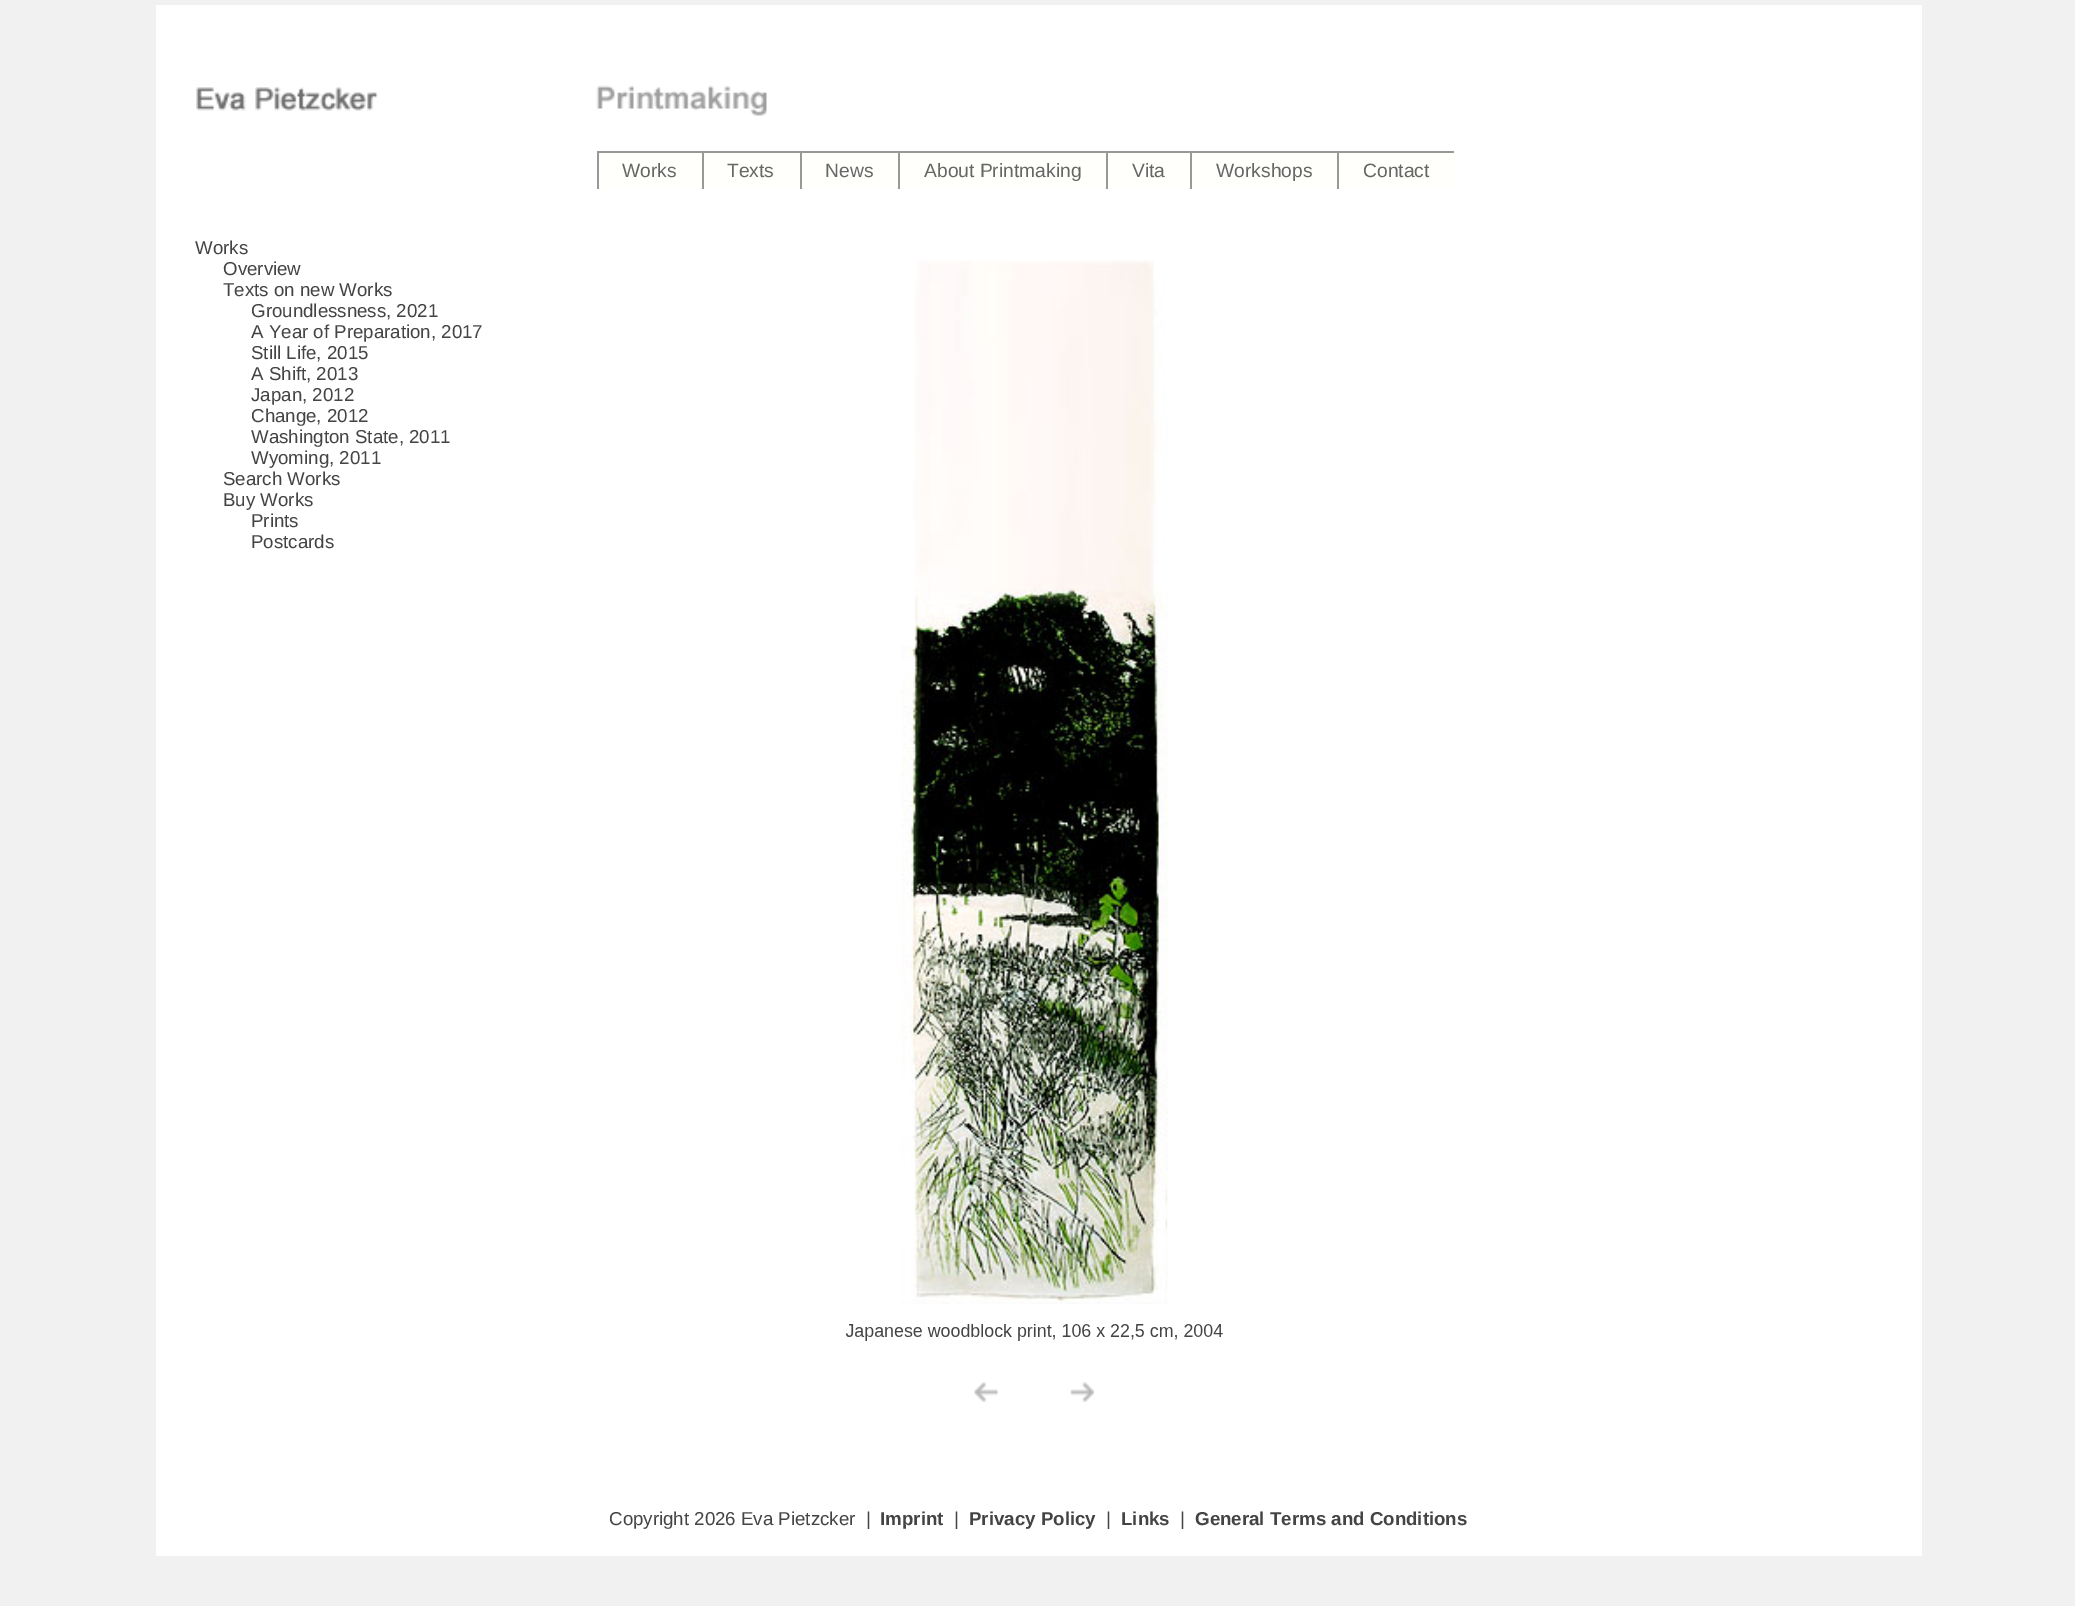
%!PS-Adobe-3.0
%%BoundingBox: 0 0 2075 1606
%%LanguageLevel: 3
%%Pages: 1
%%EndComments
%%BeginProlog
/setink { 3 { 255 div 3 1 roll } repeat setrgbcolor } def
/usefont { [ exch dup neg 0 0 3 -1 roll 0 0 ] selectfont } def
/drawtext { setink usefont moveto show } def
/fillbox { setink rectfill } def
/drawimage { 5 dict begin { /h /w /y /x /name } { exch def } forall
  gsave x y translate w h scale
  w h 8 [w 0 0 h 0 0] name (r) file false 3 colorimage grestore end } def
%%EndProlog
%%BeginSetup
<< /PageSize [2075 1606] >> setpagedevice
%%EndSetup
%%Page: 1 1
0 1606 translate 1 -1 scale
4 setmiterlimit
0 0 2075 1606 241 241 241 fillbox
156 5 1766 1551 255 255 255 fillbox
(assets/img1.rgb) 196 87 182 24 drawimage
(assets/img2.rgb) 596 85 171 31 drawimage
599 153 103 36 255 255 252 fillbox
597 151 857 2 152 152 152 fillbox
597 151 2 38 152 152 152 fillbox
(Works) 622 177 /LiberationSans-Regular 19.25 102 102 102 drawtext
704 153 96 36 255 255 252 fillbox
702 151 2 38 152 152 152 fillbox
(Texts) 727 177 /LiberationSans-Regular 19.25 102 102 102 drawtext
802 153 96 36 255 255 252 fillbox
800 151 2 38 152 152 152 fillbox
(News) 825 177 /LiberationSans-Regular 19.25 102 102 102 drawtext
900 153 206 36 255 255 252 fillbox
898 151 2 38 152 152 152 fillbox
(About Printmaking) 924 177 /LiberationSans-Regular 19.25 102 102 102 drawtext
1108 153 82 36 255 255 252 fillbox
1106 151 2 38 152 152 152 fillbox
(Vita) 1132 177 /LiberationSans-Regular 19.25 102 102 102 drawtext
1192 153 145 36 255 255 252 fillbox
1190 151 2 38 152 152 152 fillbox
(Workshops) 1216 177 /LiberationSans-Regular 19.25 102 102 102 drawtext
1339 153 115 36 255 255 252 fillbox
1337 151 2 38 152 152 152 fillbox
(Contact) 1363 177 /LiberationSans-Regular 19.25 102 102 102 drawtext
(Works) 195 254 /LiberationSans-Regular 18.7 68 68 68 drawtext
(Overview) 223 275 /LiberationSans-Regular 18.7 68 68 68 drawtext
(Texts on new Works) 223 296 /LiberationSans-Regular 18.7 68 68 68 drawtext
(Groundlessness, 2021) 251 317 /LiberationSans-Regular 18.7 68 68 68 drawtext
(A Year of Preparation, 2017) 251 338 /LiberationSans-Regular 18.7 68 68 68 drawtext
(Still Life, 2015) 251 359 /LiberationSans-Regular 18.7 68 68 68 drawtext
(A Shift, 2013) 251 380 /LiberationSans-Regular 18.7 68 68 68 drawtext
(Japan, 2012) 251 401 /LiberationSans-Regular 18.7 68 68 68 drawtext
(Change, 2012) 251 422 /LiberationSans-Regular 18.7 68 68 68 drawtext
(Washington State, 2011) 251 443 /LiberationSans-Regular 18.7 68 68 68 drawtext
(Wyoming, 2011) 251 464 /LiberationSans-Regular 18.7 68 68 68 drawtext
(Search Works) 223 485 /LiberationSans-Regular 18.7 68 68 68 drawtext
(Buy Works) 223 506 /LiberationSans-Regular 18.7 68 68 68 drawtext
(Prints) 251 527 /LiberationSans-Regular 18.7 68 68 68 drawtext
(Postcards) 251 548 /LiberationSans-Regular 18.7 68 68 68 drawtext
(assets/img3.rgb) 845 260 378 1142 drawimage
(Copyright 2026 Eva Pietzcker  |) 609 1525 /LiberationSans-Regular 18.7 68 68 68 drawtext
(Imprint) 880 1525 /LiberationSans-Bold 18.7 68 68 68 drawtext
(|) 954 1525 /LiberationSans-Regular 18.7 68 68 68 drawtext
(Privacy Policy) 969 1525 /LiberationSans-Bold 18.7 68 68 68 drawtext
(|) 1106 1525 /LiberationSans-Regular 18.7 68 68 68 drawtext
(Links) 1121 1525 /LiberationSans-Bold 18.7 68 68 68 drawtext
(|) 1180 1525 /LiberationSans-Regular 18.7 68 68 68 drawtext
(General Terms and Conditions) 1195 1525 /LiberationSans-Bold 18.7 68 68 68 drawtext
showpage
%%EOF
